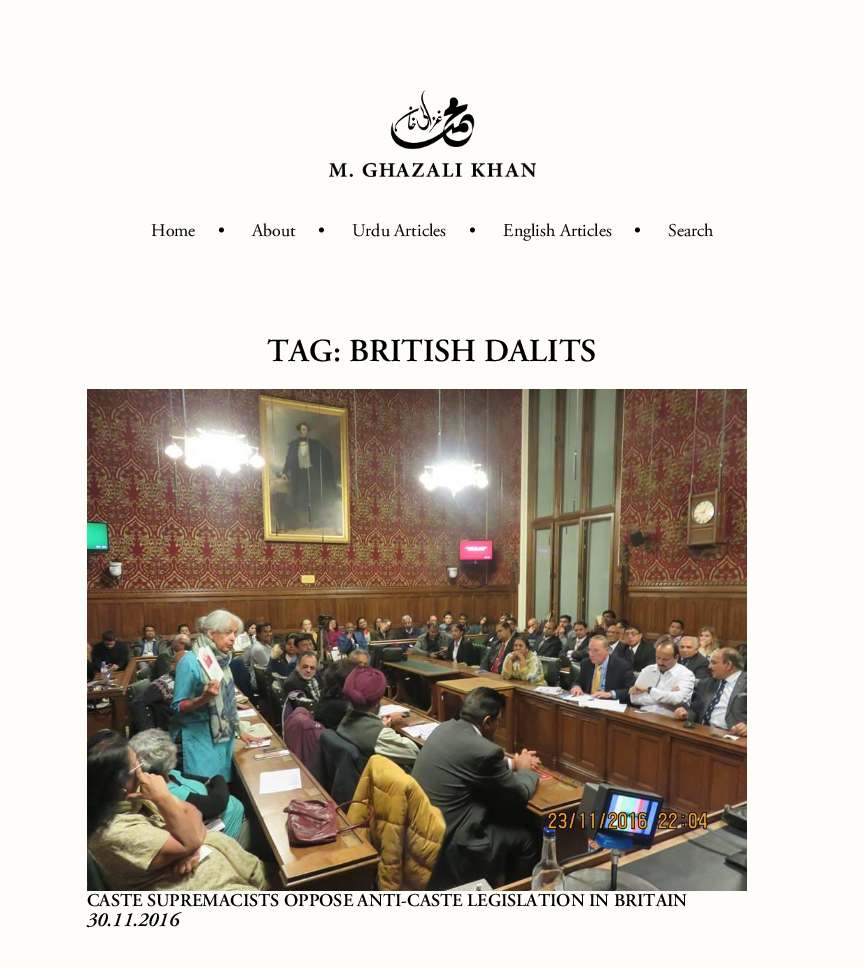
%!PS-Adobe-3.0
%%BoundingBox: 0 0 864 967
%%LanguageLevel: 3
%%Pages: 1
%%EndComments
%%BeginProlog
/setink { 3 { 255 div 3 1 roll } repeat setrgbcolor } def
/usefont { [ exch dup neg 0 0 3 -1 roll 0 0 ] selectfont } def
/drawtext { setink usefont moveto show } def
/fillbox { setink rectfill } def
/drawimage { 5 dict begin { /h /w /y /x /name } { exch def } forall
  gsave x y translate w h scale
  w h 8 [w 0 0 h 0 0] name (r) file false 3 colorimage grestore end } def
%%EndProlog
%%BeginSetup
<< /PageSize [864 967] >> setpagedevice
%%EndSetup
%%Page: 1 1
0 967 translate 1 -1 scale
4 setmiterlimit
0 0 864 967 255 253 250 fillbox
(assets/img1.rgb) 329 90 207 87 drawimage
(Home) 151 236 /AdobeGaramond-Regular 18 0 0 0 drawtext
(•) 218 236 /AdobeGaramond-Regular 18 0 0 0 drawtext
(About) 252 236 /AdobeGaramond-Regular 18 0 0 0 drawtext
(•) 318 236 /AdobeGaramond-Regular 18 0 0 0 drawtext
(Urdu Articles) 352 236 /AdobeGaramond-Regular 18 0 0 0 drawtext
(•) 469 236 /AdobeGaramond-Regular 18 0 0 0 drawtext
(English Articles) 503 236 /AdobeGaramond-Regular 18 0 0 0 drawtext
(•) 634 236 /AdobeGaramond-Regular 18 0 0 0 drawtext
(Search) 668 236 /AdobeGaramond-Regular 18 0 0 0 drawtext
(TAG: BRITISH DALITS) 267 361 /AdobeGaramond-SemiBold 32 0 0 0 drawtext
(assets/img2.rgb) 87 389 660 502 drawimage
(CASTE SUPREMACISTS OPPOSE ANTI-CASTE LEGISLATION IN BRITAIN) 87 906 /AdobeGaramond-SemiBold 18 0 0 0 drawtext
(30.11.2016) 87 926 /AdobeGaramond-SemiBoldItalic 20 0 0 0 drawtext
showpage
%%EOF
